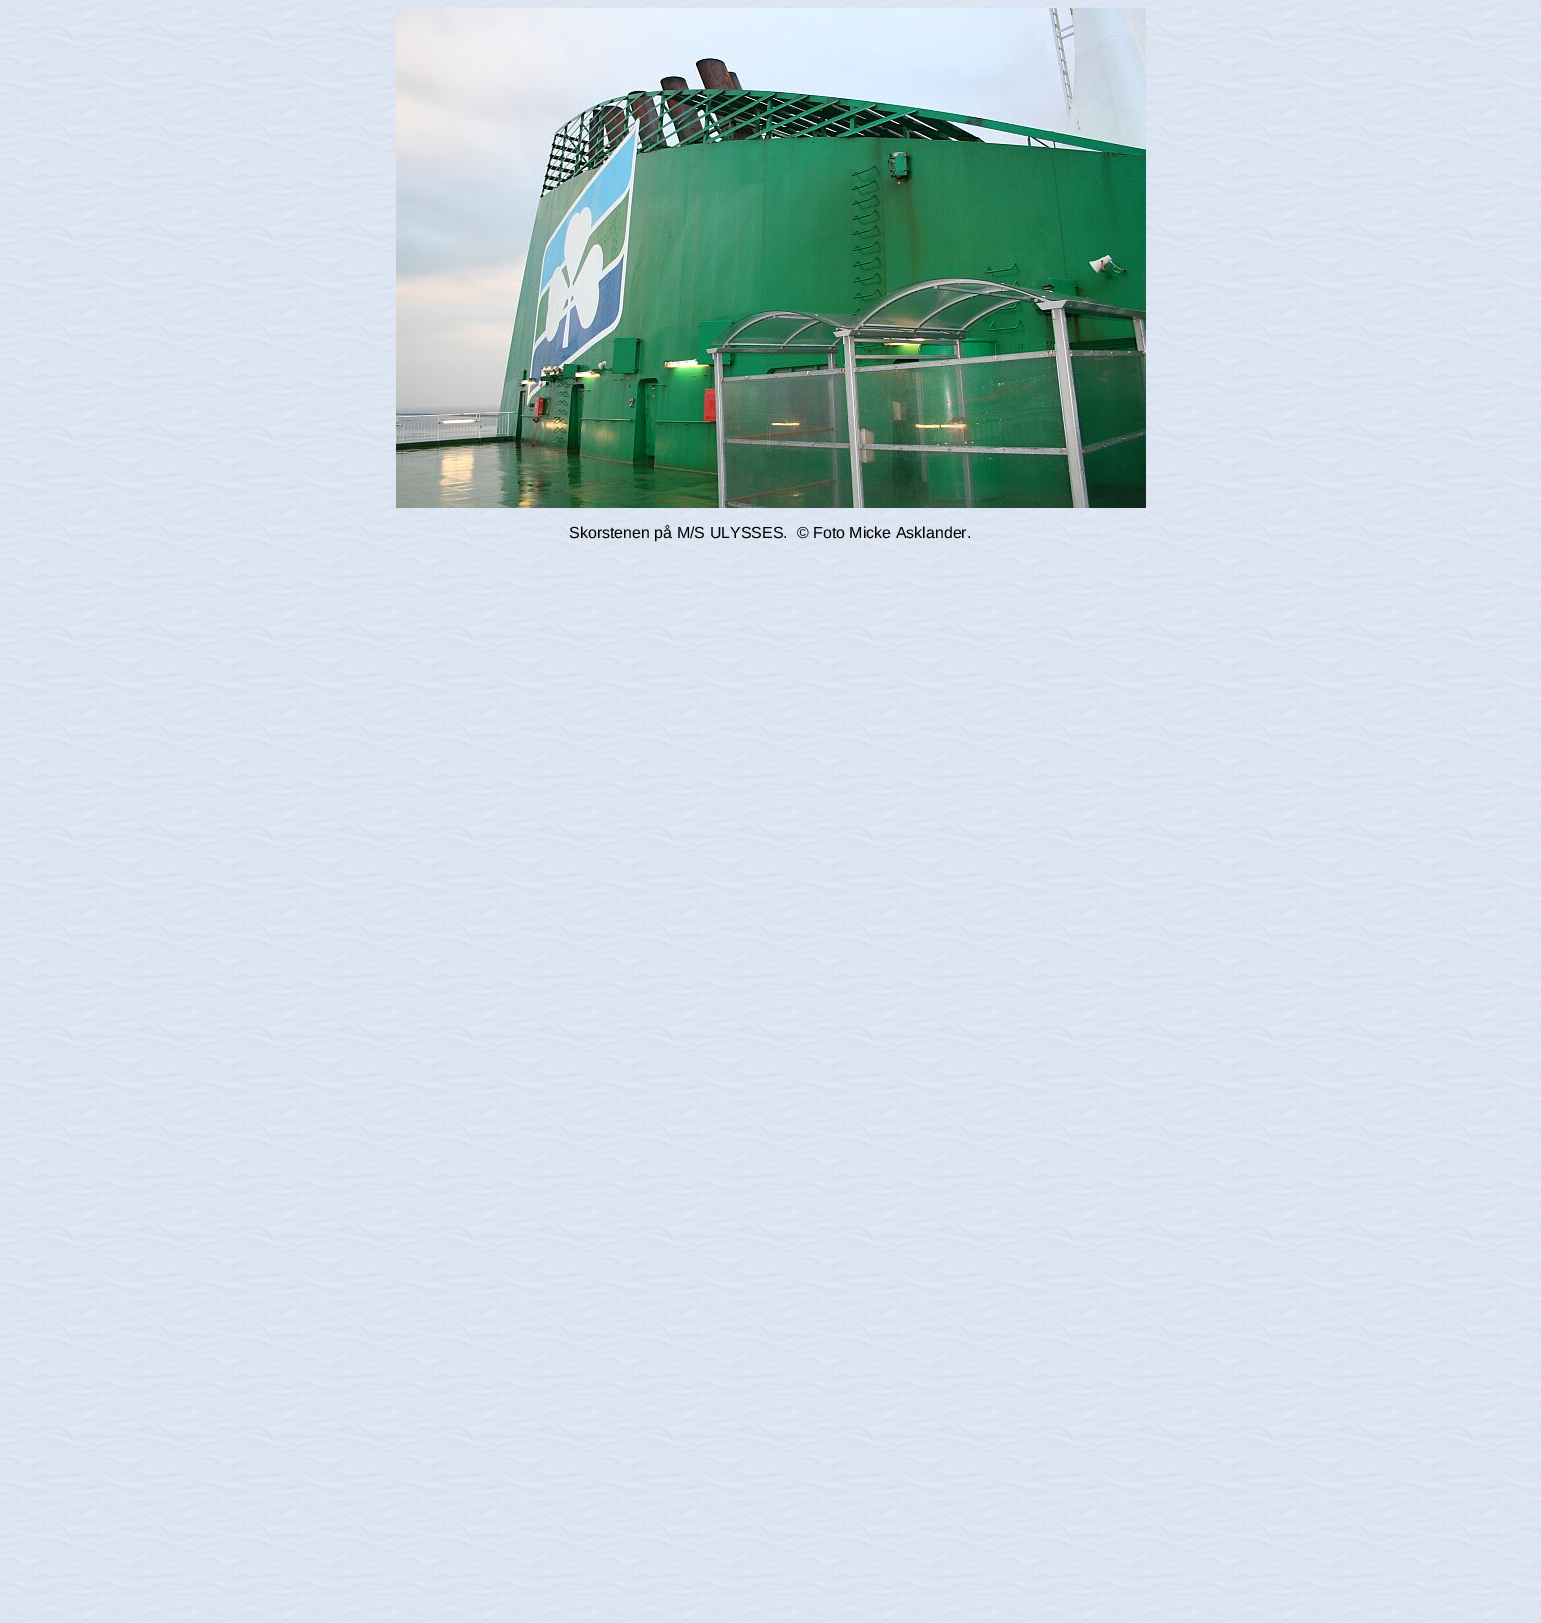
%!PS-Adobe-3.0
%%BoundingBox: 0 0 1541 1623
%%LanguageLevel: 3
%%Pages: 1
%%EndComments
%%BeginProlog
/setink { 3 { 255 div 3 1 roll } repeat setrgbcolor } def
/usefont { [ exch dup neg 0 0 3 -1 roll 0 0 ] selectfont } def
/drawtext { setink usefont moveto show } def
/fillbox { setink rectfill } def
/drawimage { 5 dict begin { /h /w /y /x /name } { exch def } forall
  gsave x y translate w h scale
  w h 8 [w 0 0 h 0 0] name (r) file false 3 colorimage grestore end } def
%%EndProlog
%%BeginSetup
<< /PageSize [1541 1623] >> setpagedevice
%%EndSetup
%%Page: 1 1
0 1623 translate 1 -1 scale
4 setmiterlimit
0 0 1541 1623 255 255 255 fillbox
(assets/img1.rgb) 0 0 1541 1623 drawimage
(assets/img2.rgb) 396 8 750 500 drawimage
(Skorstenen på M/S ULYSSES.  © Foto Micke Asklander.) 569 538 /LiberationSans-Regular 16 0 0 0 drawtext
showpage
%%EOF
